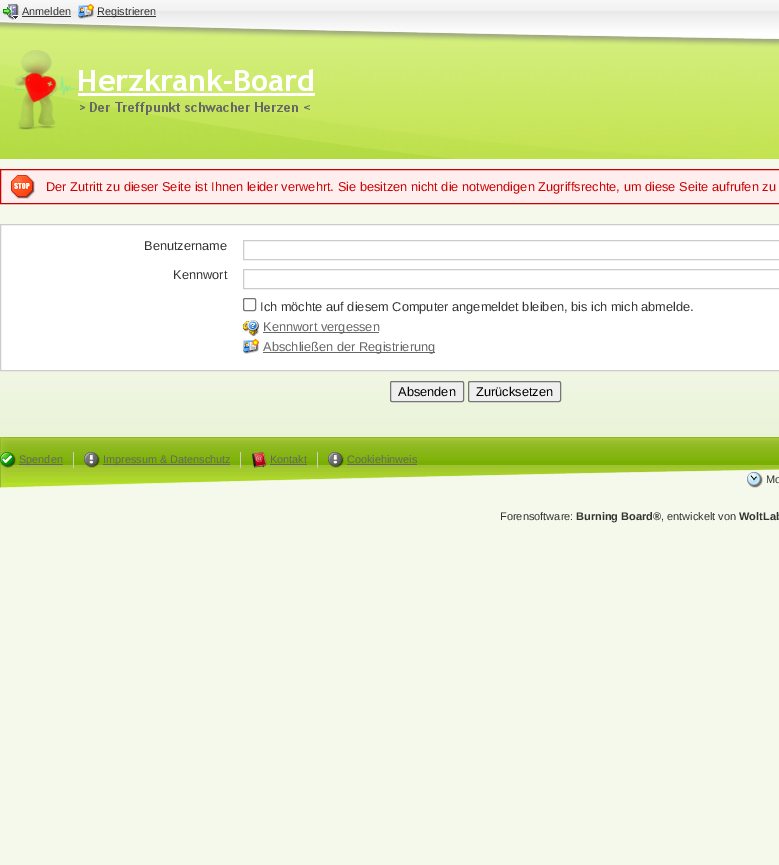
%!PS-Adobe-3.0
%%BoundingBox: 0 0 779 865
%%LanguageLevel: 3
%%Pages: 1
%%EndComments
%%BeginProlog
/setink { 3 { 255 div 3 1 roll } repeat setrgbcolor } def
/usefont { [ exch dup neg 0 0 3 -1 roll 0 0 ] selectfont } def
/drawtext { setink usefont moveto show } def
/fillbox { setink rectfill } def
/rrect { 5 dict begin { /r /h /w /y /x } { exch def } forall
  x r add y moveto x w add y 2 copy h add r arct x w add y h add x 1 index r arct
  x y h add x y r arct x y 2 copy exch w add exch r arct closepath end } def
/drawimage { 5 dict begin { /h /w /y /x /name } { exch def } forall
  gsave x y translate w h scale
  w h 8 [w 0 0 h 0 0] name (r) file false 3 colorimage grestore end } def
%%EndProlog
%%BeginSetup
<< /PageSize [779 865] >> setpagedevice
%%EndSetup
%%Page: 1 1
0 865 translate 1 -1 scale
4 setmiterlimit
0 0 779 865 245 249 236 fillbox
(assets/img1.rgb) 0 0 779 159 drawimage
(assets/img2.rgb) 3 4 16 16 drawimage
(Anmelden) 22 15 /LiberationSans-Regular 10.9 51 51 51 drawtext
22 16 49 1 51 51 51 fillbox
(assets/img3.rgb) 78 4 16 15 drawimage
97 16 59 1 51 51 51 fillbox
(Registrieren) 97 15 /LiberationSans-Regular 10.9 51 51 51 drawtext
(assets/img4.rgb) 15 50 300 80 drawimage
(assets/img5.rgb) 0 371 779 66 drawimage
1 170 778 33 255 238 238 fillbox
(assets/img6.rgb) 11 175 24 24 drawimage
204 0 0 setink
0.5 169.5 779 34 rectstroke
(Der Zutritt zu dieser Seite ist Ihnen leider verwehrt. Sie besitzen nicht die notwendigen Zugriffsrechte, um diese Seite aufrufen zu) 46 191 /LiberationSans-Regular 12.8 204 0 0 drawtext
255 255 255 setink
0.5 224.5 moveto 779.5 224.5 lineto 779.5 370.5 lineto 0.5 370.5 lineto closepath gsave fill grestore
204 204 204 setink
stroke
(Benutzername) 144 250 /LiberationSans-Regular 12.8 51 51 51 drawtext
204 204 204 setink
243.5 240.5 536 19 rectstroke
(Kennwort) 173 279 /LiberationSans-Regular 12.8 51 51 51 drawtext
204 204 204 setink
243.5 269.5 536 19 rectstroke
118 118 118 setink
243.5 298.5 12 12 1.5 rrect stroke
(Ich möchte auf diesem Computer angemeldet bleiben, bis ich mich abmelde.) 260 311 /LiberationSans-Regular 12.8 51 51 51 drawtext
(assets/img7.rgb) 243 320 16 16 drawimage
263 332 116 1 102 102 102 fillbox
(Kennwort vergessen) 263 331 /LiberationSans-Regular 12.8 102 102 102 drawtext
(assets/img8.rgb) 243 339 16 15 drawimage
263 352 172 1 102 102 102 fillbox
(Abschließen der Registrierung) 263 351 /LiberationSans-Regular 12.8 102 102 102 drawtext
239 239 239 setink
390.5 381.5 73 20 1.5 rrect gsave fill grestore
118 118 118 setink
stroke
(Absenden) 398 396 /LiberationSans-Regular 12.8 0 0 0 drawtext
239 239 239 setink
468.5 381.5 92 20 1.5 rrect gsave fill grestore
118 118 118 setink
stroke
(Zurücksetzen) 476 396 /LiberationSans-Regular 12.8 0 0 0 drawtext
(assets/img9.rgb) 0 437 779 51 drawimage
(assets/img10.rgb) 0 452 16 16 drawimage
19 464 44 1 102 102 102 fillbox
(Spenden) 19 463 /LiberationSans-Regular 10.9 102 102 102 drawtext
73 452 1 16 204 204 204 fillbox
(assets/img11.rgb) 84 452 16 16 drawimage
103 464 127 1 102 102 102 fillbox
(Impressum & Datenschutz) 103 463 /LiberationSans-Regular 10.9 102 102 102 drawtext
240 452 1 16 204 204 204 fillbox
(assets/img12.rgb) 252 452 15 16 drawimage
(Kontakt) 270 463 /LiberationSans-Regular 10.9 102 102 102 drawtext
270 464 37 1 102 102 102 fillbox
317 452 1 16 204 204 204 fillbox
(assets/img11.rgb) 328 452 16 16 drawimage
(Cookiehinweis) 347 463 /LiberationSans-Regular 10.9 102 102 102 drawtext
347 464 70 1 102 102 102 fillbox
(assets/img13.rgb) 747 472 16 16 drawimage
(Mo) 766 483 /LiberationSans-Regular 10.9 51 51 51 drawtext
(Forensoftware:) 500 520 /LiberationSans-Regular 11 51 51 51 drawtext
(Burning Board®) 576 520 /LiberationSans-Bold 11 51 51 51 drawtext
(, entwickelt von) 661 520 /LiberationSans-Regular 11 51 51 51 drawtext
(WoltLab) 739 520 /LiberationSans-Bold 11 51 51 51 drawtext
showpage
%%EOF
